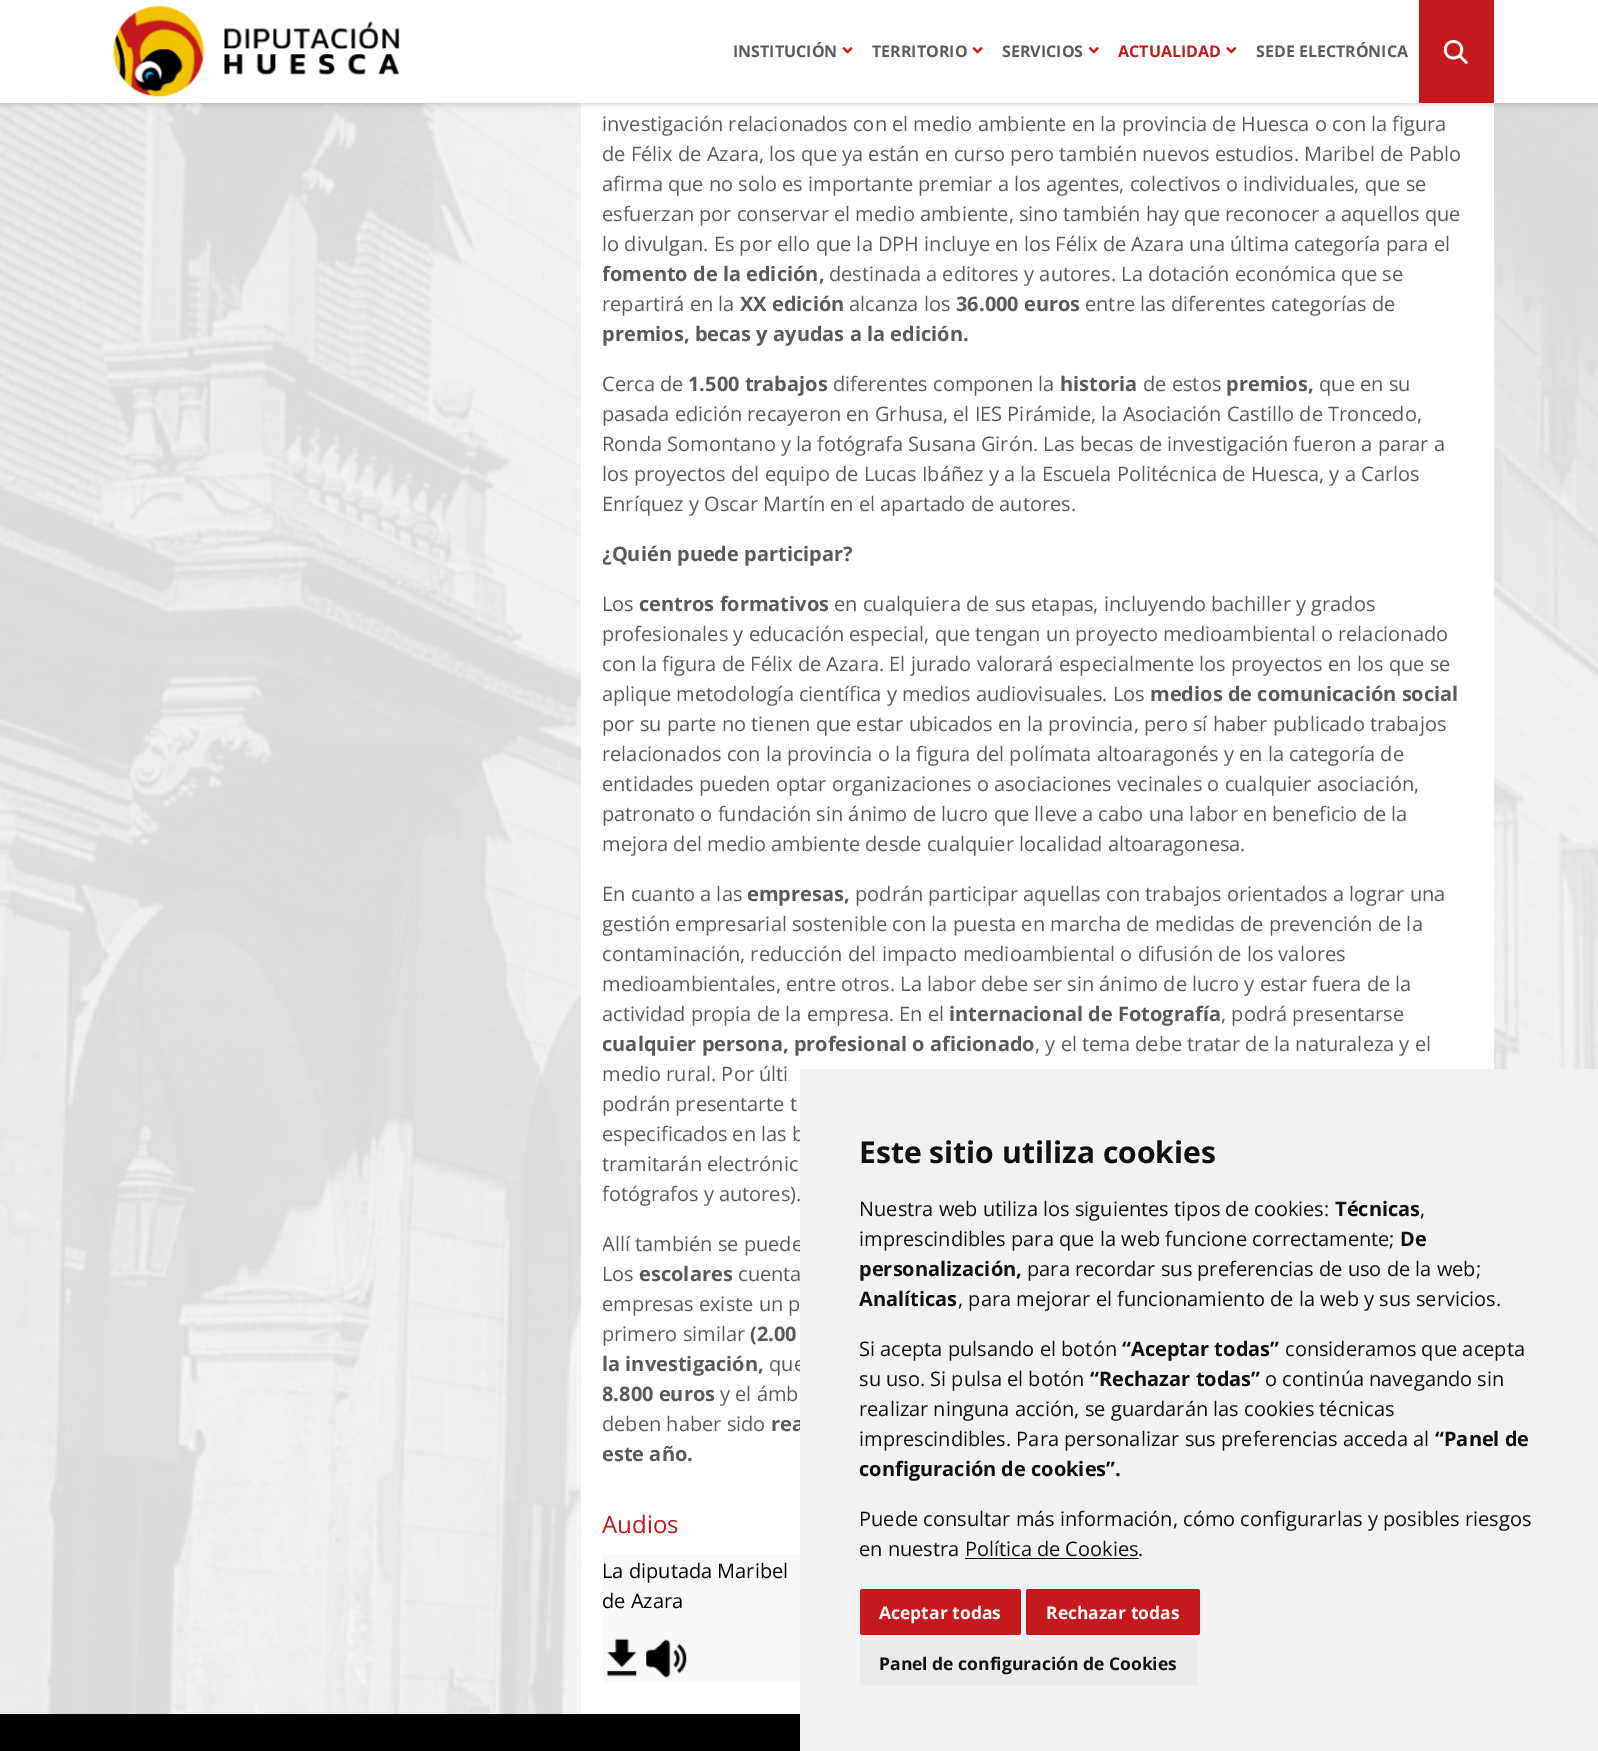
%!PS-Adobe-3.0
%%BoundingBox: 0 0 1598 1751
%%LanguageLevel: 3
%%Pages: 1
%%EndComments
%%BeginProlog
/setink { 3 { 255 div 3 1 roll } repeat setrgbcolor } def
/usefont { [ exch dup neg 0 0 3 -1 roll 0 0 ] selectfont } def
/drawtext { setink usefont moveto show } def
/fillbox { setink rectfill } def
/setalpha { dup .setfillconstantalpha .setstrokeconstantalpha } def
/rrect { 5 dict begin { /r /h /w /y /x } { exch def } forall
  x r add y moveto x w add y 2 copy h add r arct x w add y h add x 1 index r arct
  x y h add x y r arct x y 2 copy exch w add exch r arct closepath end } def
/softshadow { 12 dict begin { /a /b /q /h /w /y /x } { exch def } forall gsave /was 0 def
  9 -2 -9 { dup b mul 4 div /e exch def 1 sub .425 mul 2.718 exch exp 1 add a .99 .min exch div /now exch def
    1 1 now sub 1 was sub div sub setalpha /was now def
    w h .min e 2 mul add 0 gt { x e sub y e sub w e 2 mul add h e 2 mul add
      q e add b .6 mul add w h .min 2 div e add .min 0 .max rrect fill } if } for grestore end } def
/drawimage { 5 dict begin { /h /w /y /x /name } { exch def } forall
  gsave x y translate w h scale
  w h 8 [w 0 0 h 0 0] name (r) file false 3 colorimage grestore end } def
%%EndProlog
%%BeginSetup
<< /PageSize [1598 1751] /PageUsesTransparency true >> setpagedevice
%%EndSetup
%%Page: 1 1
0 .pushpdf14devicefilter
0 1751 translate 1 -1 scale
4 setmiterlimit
0 0 1598 1751 255 255 255 fillbox
(assets/img6.rgb) 0 103 1598 1611 drawimage
581 103 913 1611 255 255 255 fillbox
0 0 0 setink
1 3 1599 102 0 2.5 0.15 softshadow
0 0 1598 103 255 255 255 fillbox
(assets/img1.rgb) 113 5 287 92 drawimage
(INSTITUCIÓN) 733 57 /OpenSans-Bold 16 90 90 87 drawtext
(assets/img2.rgb) 842 47 11 7 drawimage
(TERRITORIO) 872 57 /OpenSans-Bold 16 90 90 87 drawtext
(assets/img2.rgb) 972 47 11 7 drawimage
(SERVICIOS) 1002 57 /OpenSans-Bold 16 90 90 87 drawtext
(assets/img3.rgb) 1088 47 11 7 drawimage
(ACTUALIDAD) 1118 57 /OpenSans-Bold 16 196 26 27 drawtext
(assets/img4.rgb) 1226 47 11 7 drawimage
(SEDE ELECTRÓNICA) 1256 57 /OpenSans-Bold 16 90 90 87 drawtext
1419 0 75 103 196 26 27 fillbox
(assets/img5.rgb) 1444 40 24 24 drawimage
(investigación relacionados con el medio ambiente en la provincia de Huesca o con la figura) 602 131 /OpenSans-Regular 20 90 90 87 drawtext
(de Félix de Azara, los que ya están en curso pero también nuevos estudios. Maribel de Pablo) 602 161 /OpenSans-Regular 20 90 90 87 drawtext
(afirma que no solo es importante premiar a los agentes, colectivos o individuales, que se) 602 191 /OpenSans-Regular 20 90 90 87 drawtext
(esfuerzan por conservar el medio ambiente, sino también hay que reconocer a aquellos que) 602 221 /OpenSans-Regular 20 90 90 87 drawtext
(lo divulgan. Es por ello que la DPH incluye en los Félix de Azara una última categoría para el) 602 251 /OpenSans-Regular 20 90 90 87 drawtext
gsave
603 0 870 1489 rectclip
(fomento de la edición,) 602 281 /OpenSans-Bold 20 90 90 87 drawtext
grestore
(destinada a editores y autores. La dotación económica que se) 829 281 /OpenSans-Regular 20 90 90 87 drawtext
(repartirá en la) 602 311 /OpenSans-Regular 20 90 90 87 drawtext
(XX edición) 740 311 /OpenSans-Bold 20 90 90 87 drawtext
(alcanza los) 849 311 /OpenSans-Regular 20 90 90 87 drawtext
(36.000 euros) 956 311 /OpenSans-Bold 20 90 90 87 drawtext
(entre las diferentes categorías de) 1085 311 /OpenSans-Regular 20 90 90 87 drawtext
(premios, becas y ayudas a la edición.) 602 341 /OpenSans-Bold 20 90 90 87 drawtext
(Cerca de) 602 391 /OpenSans-Regular 20 90 90 87 drawtext
(1.500 trabajos) 688 391 /OpenSans-Bold 20 90 90 87 drawtext
(diferentes componen la) 833 391 /OpenSans-Regular 20 90 90 87 drawtext
(historia) 1060 391 /OpenSans-Bold 20 90 90 87 drawtext
(de estos) 1143 391 /OpenSans-Regular 20 90 90 87 drawtext
(premios,) 1226 391 /OpenSans-Bold 20 90 90 87 drawtext
(que en su) 1319 391 /OpenSans-Regular 20 90 90 87 drawtext
(pasada edición recayeron en Grhusa, el IES Pirámide, la Asociación Castillo de Troncedo,) 602 421 /OpenSans-Regular 20 90 90 87 drawtext
(Ronda Somontano y la fotógrafa Susana Girón. Las becas de investigación fueron a parar a) 602 451 /OpenSans-Regular 20 90 90 87 drawtext
(los proyectos del equipo de Lucas Ibáñez y a la Escuela Politécnica de Huesca, y a Carlos) 602 481 /OpenSans-Regular 20 90 90 87 drawtext
(Enríquez y Oscar Martín en el apartado de autores.) 602 511 /OpenSans-Regular 20 90 90 87 drawtext
gsave
603 0 870 1489 rectclip
(¿Quién puede participar?) 602 561 /OpenSans-Bold 20 90 90 87 drawtext
grestore
(Los) 602 611 /OpenSans-Regular 20 90 90 87 drawtext
(centros formativos) 639 611 /OpenSans-Bold 20 90 90 87 drawtext
(en cualquiera de sus etapas, incluyendo bachiller y grados) 834 611 /OpenSans-Regular 20 90 90 87 drawtext
(profesionales y educación especial, que tengan un proyecto medioambiental o relacionado) 602 641 /OpenSans-Regular 20 90 90 87 drawtext
(con la figura de Félix de Azara. El jurado valorará especialmente los proyectos en los que se) 602 671 /OpenSans-Regular 20 90 90 87 drawtext
(aplique metodología científica y medios audiovisuales. Los) 602 701 /OpenSans-Regular 20 90 90 87 drawtext
(medios de comunicación social) 1150 701 /OpenSans-Bold 20 90 90 87 drawtext
(por su parte no tienen que estar ubicados en la provincia, pero sí haber publicado trabajos) 602 731 /OpenSans-Regular 20 90 90 87 drawtext
(relacionados con la provincia o la figura del polímata altoaragonés y en la categoría de) 602 761 /OpenSans-Regular 20 90 90 87 drawtext
(entidades pueden optar organizaciones o asociaciones vecinales o cualquier asociación,) 602 791 /OpenSans-Regular 20 90 90 87 drawtext
(patronato o fundación sin ánimo de lucro que lleve a cabo una labor en beneficio de la) 602 821 /OpenSans-Regular 20 90 90 87 drawtext
(mejora del medio ambiente desde cualquier localidad altoaragonesa.) 602 851 /OpenSans-Regular 20 90 90 87 drawtext
(En cuanto a las) 602 901 /OpenSans-Regular 20 90 90 87 drawtext
(empresas,) 747 901 /OpenSans-Bold 20 90 90 87 drawtext
(podrán participar aquellas con trabajos orientados a lograr una) 855 901 /OpenSans-Regular 20 90 90 87 drawtext
gsave
603 0 870 1489 rectclip
(gestión empresarial sostenible con la puesta en marcha de medidas de prevención de la) 602 931 /OpenSans-Regular 20 90 90 87 drawtext
grestore
(contaminación, reducción del impacto medioambiental o difusión de los valores) 602 961 /OpenSans-Regular 20 90 90 87 drawtext
(medioambientales, entre otros. La labor debe ser sin ánimo de lucro y estar fuera de la) 602 991 /OpenSans-Regular 20 90 90 87 drawtext
(actividad propia de la empresa. En el) 602 1021 /OpenSans-Regular 20 90 90 87 drawtext
(internacional de Fotografía) 949 1021 /OpenSans-Bold 20 90 90 87 drawtext
(, podrá presentarse) 1221 1021 /OpenSans-Regular 20 90 90 87 drawtext
gsave
603 0 870 1489 rectclip
(cualquier persona, profesional o aficionado) 602 1051 /OpenSans-Bold 20 90 90 87 drawtext
grestore
(, y el tema debe tratar de la naturaleza y el) 1035 1051 /OpenSans-Regular 20 90 90 87 drawtext
(medio rural. Por últi) 602 1081 /OpenSans-Regular 20 90 90 87 drawtext
(podrán presentarte t) 602 1111 /OpenSans-Regular 20 90 90 87 drawtext
(especificados en las b) 602 1141 /OpenSans-Regular 20 90 90 87 drawtext
(tramitarán electrónic) 602 1171 /OpenSans-Regular 20 90 90 87 drawtext
(fotógrafos y autores\).) 602 1201 /OpenSans-Regular 20 90 90 87 drawtext
gsave
603 0 870 1489 rectclip
(Allí también se puede) 602 1251 /OpenSans-Regular 20 90 90 87 drawtext
grestore
(Los) 602 1281 /OpenSans-Regular 20 90 90 87 drawtext
(escolares) 639 1281 /OpenSans-Bold 20 90 90 87 drawtext
(cuenta) 738 1281 /OpenSans-Regular 20 90 90 87 drawtext
(empresas existe un p) 602 1311 /OpenSans-Regular 20 90 90 87 drawtext
(primero similar) 602 1341 /OpenSans-Regular 20 90 90 87 drawtext
(\(2.00) 750 1341 /OpenSans-Bold 20 90 90 87 drawtext
(la investigación,) 602 1371 /OpenSans-Bold 20 90 90 87 drawtext
(que) 769 1371 /OpenSans-Regular 20 90 90 87 drawtext
gsave
603 0 870 1489 rectclip
(8.800 euros) 602 1401 /OpenSans-Bold 20 90 90 87 drawtext
grestore
(y el ámb) 720 1401 /OpenSans-Regular 20 90 90 87 drawtext
(deben haber sido) 602 1431 /OpenSans-Regular 20 90 90 87 drawtext
(rea) 771 1431 /OpenSans-Bold 20 90 90 87 drawtext
gsave
603 0 870 1489 rectclip
(este año.) 602 1461 /OpenSans-Bold 20 90 90 87 drawtext
grestore
(Audios) 602 1533 /OpenSans-Regular 24 196 26 27 drawtext
603 1555 197 128 248 248 248 fillbox
(La diputada Maribel) 602 1578 /OpenSans-Regular 20 0 0 0 drawtext
(de Azara) 602 1608 /OpenSans-Regular 20 0 0 0 drawtext
(assets/img7.rgb) 607 1638 30 39 drawimage
(assets/img8.rgb) 646 1639 41 39 drawimage
0 1714 800 37 0 0 0 fillbox
800 1069 798 682 242 242 242 fillbox
(Este sitio utiliza cookies) 859 1163 /OpenSans-Bold 30 17 17 17 drawtext
(Nuestra web utiliza los siguientes tipos de cookies:) 859 1216 /OpenSans-Regular 20 17 17 17 drawtext
(Técnicas) 1335 1216 /OpenSans-Bold 20 17 17 17 drawtext
(,) 1420 1216 /OpenSans-Regular 20 17 17 17 drawtext
(imprescindibles para que la web funcione correctamente;) 859 1246 /OpenSans-Regular 20 17 17 17 drawtext
(De) 1400 1246 /OpenSans-Bold 20 17 17 17 drawtext
(personalización,) 859 1276 /OpenSans-Bold 20 17 17 17 drawtext
(para recordar sus preferencias de uso de la web;) 1027 1276 /OpenSans-Regular 20 17 17 17 drawtext
(Analíticas) 859 1306 /OpenSans-Bold 20 17 17 17 drawtext
(, para mejorar el funcionamiento de la web y sus servicios.) 958 1306 /OpenSans-Regular 20 17 17 17 drawtext
(Si acepta pulsando el botón) 859 1356 /OpenSans-Regular 20 17 17 17 drawtext
(“Aceptar todas”) 1122 1356 /OpenSans-Bold 20 17 17 17 drawtext
(consideramos que acepta) 1285 1356 /OpenSans-Regular 20 17 17 17 drawtext
(su uso. Si pulsa el botón) 859 1386 /OpenSans-Regular 20 17 17 17 drawtext
(“Rechazar todas”) 1090 1386 /OpenSans-Bold 20 17 17 17 drawtext
(o continúa navegando sin) 1265 1386 /OpenSans-Regular 20 17 17 17 drawtext
(realizar ninguna acción, se guardarán las cookies técnicas) 859 1416 /OpenSans-Regular 20 17 17 17 drawtext
(imprescindibles. Para personalizar sus preferencias acceda al) 859 1446 /OpenSans-Regular 20 17 17 17 drawtext
(“Panel de) 1435 1446 /OpenSans-Bold 20 17 17 17 drawtext
(configuración de cookies”.) 859 1476 /OpenSans-Bold 20 17 17 17 drawtext
(Puede consultar más información, cómo configurarlas y posibles riesgos) 859 1526 /OpenSans-Regular 20 17 17 17 drawtext
(en nuestra Política de Cookies.) 859 1556 /OpenSans-Regular 20 17 17 17 drawtext
965 1558 174 1 17 17 17 fillbox
196 26 27 setink
860 1589 161 46 2.5 rrect fill
(Aceptar todas) 879 1619 /OpenSans-Bold 17.5 255 255 255 drawtext
196 26 27 setink
1026 1589 174 46 2.5 rrect fill
(Rechazar todas) 1046 1619 /OpenSans-Bold 17.5 255 255 255 drawtext
234 234 234 setink
860 1640 338 46 2.5 rrect fill
(Panel de configuración de Cookies) 879 1670 /OpenSans-Bold 17.5 17 17 17 drawtext
.poppdf14devicefilter showpage
%%EOF
